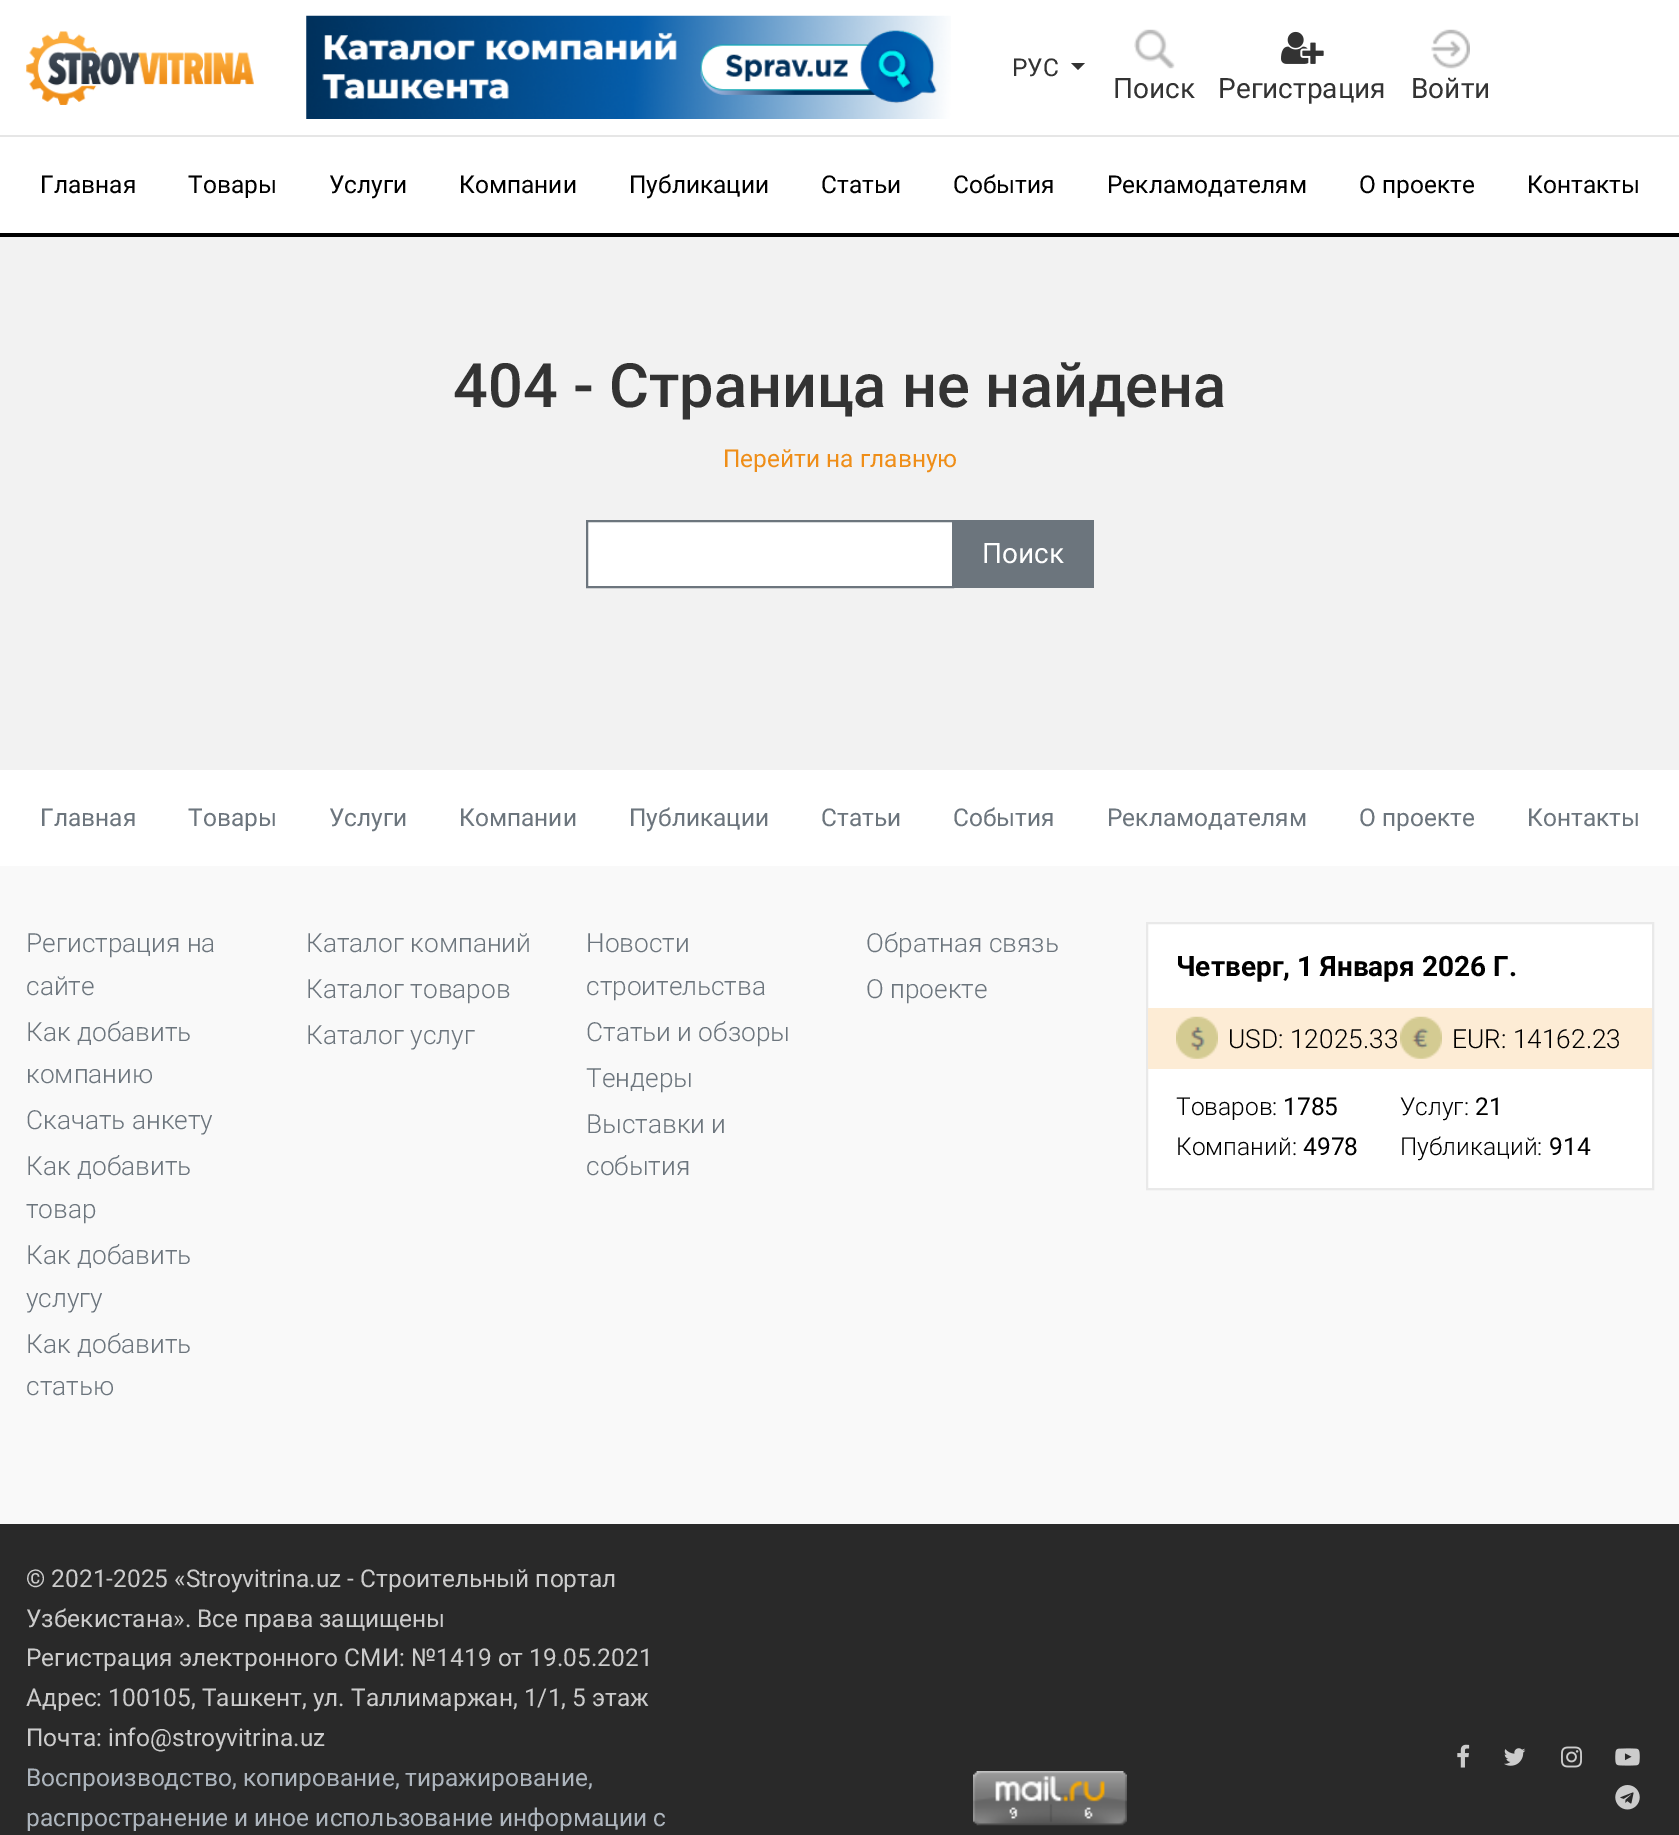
%!PS-Adobe-3.0
%%BoundingBox: 0 0 1679 1835
%%LanguageLevel: 3
%%Pages: 1
%%EndComments
%%BeginProlog
/setink { 3 { 255 div 3 1 roll } repeat setrgbcolor } def
/usefont { [ exch dup neg 0 0 3 -1 roll 0 0 ] selectfont } def
/drawtext { setink usefont moveto show } def
/fillbox { setink rectfill } def
/drawimage { 5 dict begin { /h /w /y /x /name } { exch def } forall
  gsave x y translate w h scale
  w h 8 [w 0 0 h 0 0] name (r) file false 3 colorimage grestore end } def
%%EndProlog
%%BeginSetup
<< /PageSize [1679 1835] >> setpagedevice
%%EndSetup
%%Page: 1 1
0 1835 translate 1 -1 scale
4 setmiterlimit
0 0 1679 1835 242 242 242 fillbox
0 0 1679 233 255 255 255 fillbox
(assets/img1.rgb) 26 31 228 74 drawimage
(assets/img2.rgb) 306 15 645 104 drawimage
(РУС) 1012 76 /Roboto-Regular 24.5 51 51 51 drawtext
1071 63 moveto 1085 63 lineto 1078 70 lineto closepath fill
(assets/img3.rgb) 1134 29 41 40 drawimage
(Поиск) 1113 98 /Roboto-Regular 28 51 51 51 drawtext
(assets/img4.rgb) 1281 31 43 33 drawimage
(Регистрация) 1218 98 /Roboto-Regular 28 51 51 51 drawtext
(assets/img5.rgb) 1431 29 39 40 drawimage
(Войти) 1411 98 /Roboto-Regular 28 51 51 51 drawtext
0 135 1679 2 230 230 230 fillbox
0 233 1679 4 0 0 0 fillbox
(Главная) 40 193 /Roboto-Regular 24.5 0 0 0 drawtext
(Товары) 188 193 /Roboto-Regular 24.5 0 0 0 drawtext
(Услуги) 329 193 /Roboto-Regular 24.5 0 0 0 drawtext
(Компании) 459 193 /Roboto-Regular 24.5 0 0 0 drawtext
(Публикации) 629 193 /Roboto-Regular 24.5 0 0 0 drawtext
(Статьи) 821 193 /Roboto-Regular 24.5 0 0 0 drawtext
(События) 953 193 /Roboto-Regular 24.5 0 0 0 drawtext
(Рекламодателям) 1107 193 /Roboto-Regular 24.5 0 0 0 drawtext
(О проекте) 1359 193 /Roboto-Regular 24.5 0 0 0 drawtext
(Контакты) 1527 193 /Roboto-Regular 24.5 0 0 0 drawtext
(404 - Страница не найдена) 453 407 /Roboto-Medium 61.25 51 51 51 drawtext
(Перейти на главную) 723 467 /Roboto-Regular 24.5 239 142 24 drawtext
255 255 255 setink
587 521 moveto 953 521 lineto 953 587 lineto 587 587 lineto closepath gsave fill grestore
108 117 125 setink
2 setlinewidth
stroke
954 520 140 68 108 117 125 fillbox
(Поиск) 982 563 /Roboto-Regular 28 255 255 255 drawtext
0 770 1679 96 255 255 255 fillbox
(Главная) 40 826 /Roboto-Regular 24.5 108 117 125 drawtext
(Товары) 188 826 /Roboto-Regular 24.5 108 117 125 drawtext
(Услуги) 329 826 /Roboto-Regular 24.5 108 117 125 drawtext
(Компании) 459 826 /Roboto-Regular 24.5 108 117 125 drawtext
(Публикации) 629 826 /Roboto-Regular 24.5 108 117 125 drawtext
(Статьи) 821 826 /Roboto-Regular 24.5 108 117 125 drawtext
(События) 953 826 /Roboto-Regular 24.5 108 117 125 drawtext
(Рекламодателям) 1107 826 /Roboto-Regular 24.5 108 117 125 drawtext
(О проекте) 1359 826 /Roboto-Regular 24.5 108 117 125 drawtext
(Контакты) 1527 826 /Roboto-Regular 24.5 108 117 125 drawtext
0 866 1679 658 249 249 249 fillbox
(Регистрация на) 26 952 /Roboto-Light 26.25 108 117 125 drawtext
(сайте) 26 995 /Roboto-Light 26.25 108 117 125 drawtext
(Как добавить) 26 1041 /Roboto-Light 26.25 108 117 125 drawtext
(компанию) 26 1083 /Roboto-Light 26.25 108 117 125 drawtext
(Скачать анкету) 26 1129 /Roboto-Light 26.25 108 117 125 drawtext
(Как добавить) 26 1175 /Roboto-Light 26.25 108 117 125 drawtext
(товар) 26 1218 /Roboto-Light 26.25 108 117 125 drawtext
(Как добавить) 26 1264 /Roboto-Light 26.25 108 117 125 drawtext
(услугу) 26 1307 /Roboto-Light 26.25 108 117 125 drawtext
(Как добавить) 26 1353 /Roboto-Light 26.25 108 117 125 drawtext
(статью) 26 1395 /Roboto-Light 26.25 108 117 125 drawtext
(Каталог компаний) 306 952 /Roboto-Light 26.25 108 117 125 drawtext
(Каталог товаров) 306 998 /Roboto-Light 26.25 108 117 125 drawtext
(Каталог услуг) 306 1044 /Roboto-Light 26.25 108 117 125 drawtext
(Новости) 586 952 /Roboto-Light 26.25 108 117 125 drawtext
(строительства) 586 995 /Roboto-Light 26.25 108 117 125 drawtext
(Статьи и обзоры) 586 1041 /Roboto-Light 26.25 108 117 125 drawtext
(Тендеры) 586 1087 /Roboto-Light 26.25 108 117 125 drawtext
(Выставки и) 586 1133 /Roboto-Light 26.25 108 117 125 drawtext
(события) 586 1175 /Roboto-Light 26.25 108 117 125 drawtext
(Обратная связь) 866 952 /Roboto-Light 26.25 108 117 125 drawtext
(О проекте) 866 998 /Roboto-Light 26.25 108 117 125 drawtext
255 255 255 setink
1147 923 moveto 1653 923 lineto 1653 1189 lineto 1147 1189 lineto closepath gsave fill grestore
233 233 233 setink
stroke
(Четверг, 1 Января 2026 Г.) 1176 976 /Roboto-Bold 28 0 0 0 drawtext
1148 1008 504 61 253 236 213 fillbox
(assets/img6.rgb) 1176 1016 42 43 drawimage
(USD: 12025.33) 1228 1048 /Roboto-Light 26.25 0 0 0 drawtext
(assets/img7.rgb) 1400 1016 42 43 drawimage
(EUR: 14162.23) 1452 1048 /Roboto-Light 26.25 0 0 0 drawtext
(Товаров:) 1176 1115 /Roboto-Light 24.5 0 0 0 drawtext
(1785) 1283 1115 /Roboto-Regular 24.5 0 0 0 drawtext
(Компаний:) 1176 1155 /Roboto-Light 24.5 0 0 0 drawtext
(4978) 1303 1155 /Roboto-Regular 24.5 0 0 0 drawtext
(Услуг:) 1400 1115 /Roboto-Light 24.5 0 0 0 drawtext
(21) 1475 1115 /Roboto-Regular 24.5 0 0 0 drawtext
(Публикаций:) 1400 1155 /Roboto-Light 24.5 0 0 0 drawtext
(914) 1549 1155 /Roboto-Regular 24.5 0 0 0 drawtext
0 1524 1679 311 41 41 41 fillbox
(© 2021-2025 «Stroyvitrina.uz - Строительный портал) 26 1587 /Roboto-Regular 24.5 204 204 204 drawtext
(Узбекистана». Все права защищены) 26 1627 /Roboto-Regular 24.5 204 204 204 drawtext
(Регистрация электронного СМИ: №1419 от 19.05.2021) 26 1666 /Roboto-Regular 24.5 204 204 204 drawtext
(Адрес: 100105, Ташкент, ул. Таллимаржан, 1/1, 5 этаж) 26 1706 /Roboto-Regular 24.5 204 204 204 drawtext
(Почта: info@stroyvitrina.uz) 26 1746 /Roboto-Regular 24.5 204 204 204 drawtext
(Воспроизводство, копирование, тиражирование,) 26 1786 /Roboto-Regular 24.5 173 181 189 drawtext
(распространение и иное использование информации с) 26 1826 /Roboto-Regular 24.5 173 181 189 drawtext
(assets/img8.rgb) 973 1771 154 55 drawimage
(assets/img9.rgb) 1457 1744 13 24 drawimage
(assets/img10.rgb) 1504 1748 22 18 drawimage
(assets/img11.rgb) 1561 1746 21 22 drawimage
(assets/img12.rgb) 1615 1748 25 18 drawimage
(assets/img13.rgb) 1615 1785 25 25 drawimage
showpage
%%EOF
